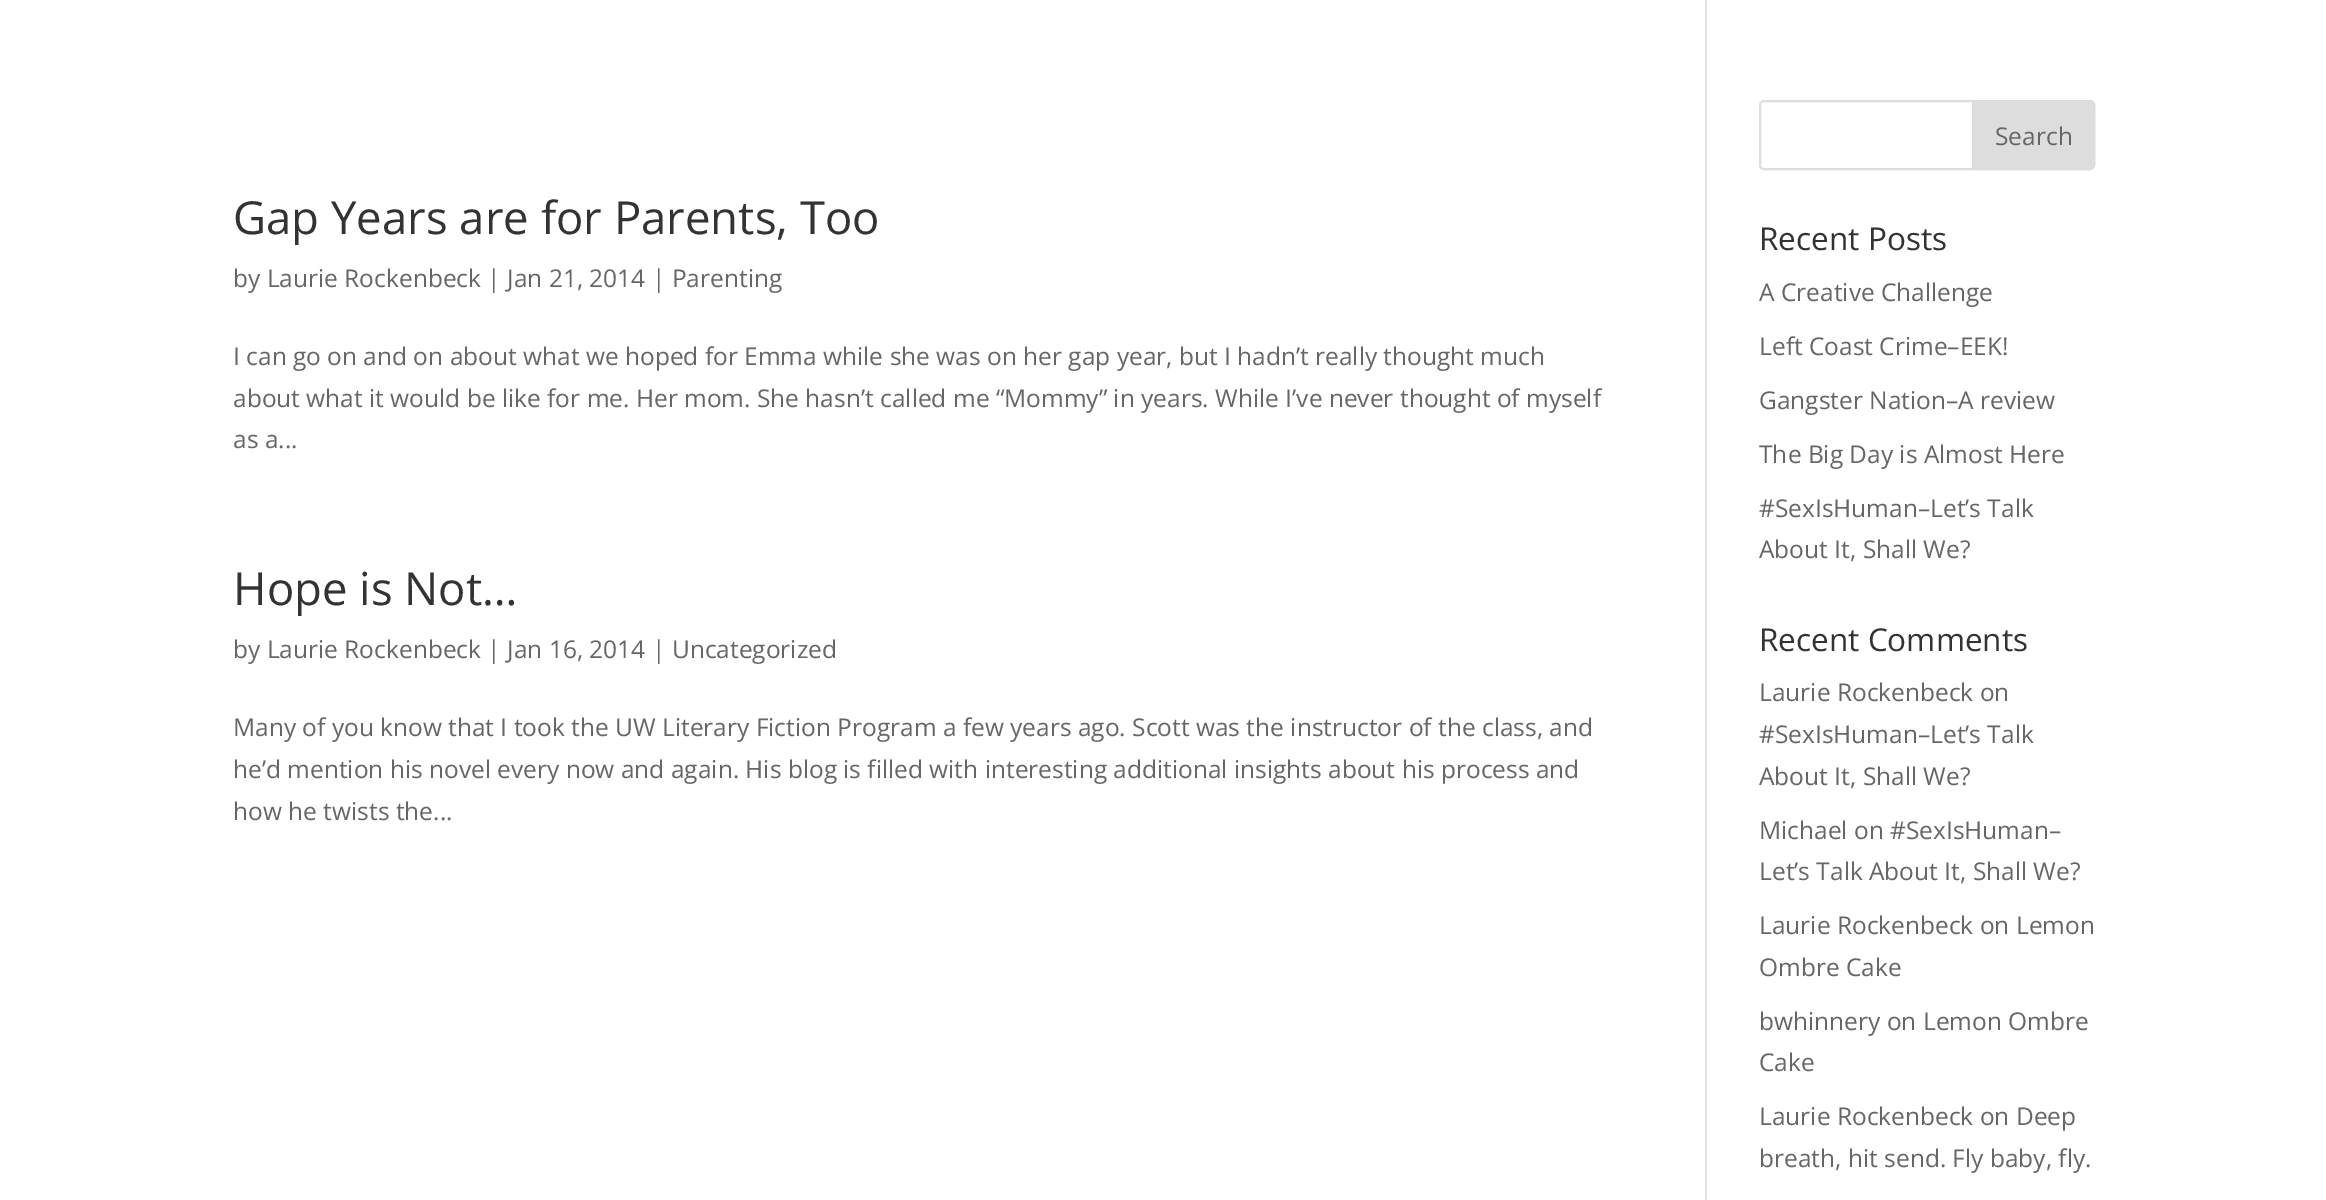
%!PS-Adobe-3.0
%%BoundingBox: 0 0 2326 1200
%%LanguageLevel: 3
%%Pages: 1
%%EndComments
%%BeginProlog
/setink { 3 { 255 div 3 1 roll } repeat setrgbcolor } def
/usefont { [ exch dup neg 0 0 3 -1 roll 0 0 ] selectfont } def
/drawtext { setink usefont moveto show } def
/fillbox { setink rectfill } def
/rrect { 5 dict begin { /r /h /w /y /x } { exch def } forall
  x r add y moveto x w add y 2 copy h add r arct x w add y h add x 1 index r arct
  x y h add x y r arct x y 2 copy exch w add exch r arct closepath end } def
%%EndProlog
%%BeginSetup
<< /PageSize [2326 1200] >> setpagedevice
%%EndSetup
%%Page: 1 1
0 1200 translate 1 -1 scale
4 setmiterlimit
0 0 2326 1200 255 255 255 fillbox
1705 0 2 1200 226 226 226 fillbox
(Gap Years are for Parents, Too) 233 234 /OpenSans-Regular 45.5 51 51 51 drawtext
(by Laurie Rockenbeck | Jan 21, 2014 | Parenting) 233 287 /OpenSans-Regular 24.5 102 102 102 drawtext
(I can go on and on about what we hoped for Emma while she was on her gap year, but I hadn’t really thought much) 233 365 /OpenSans-Regular 24.5 102 102 102 drawtext
(about what it would be like for me. Her mom. She hasn’t called me “Mommy” in years. While I’ve never thought of myself) 233 407 /OpenSans-Regular 24.5 102 102 102 drawtext
(as a...) 233 448 /OpenSans-Regular 24.5 102 102 102 drawtext
(Hope is Not…) 233 605 /OpenSans-Regular 45.5 51 51 51 drawtext
(by Laurie Rockenbeck | Jan 16, 2014 | Uncategorized) 233 658 /OpenSans-Regular 24.5 102 102 102 drawtext
(Many of you know that I took the UW Literary Fiction Program a few years ago. Scott was the instructor of the class, and) 233 736 /OpenSans-Regular 24.5 102 102 102 drawtext
(he’d mention his novel every now and again. His blog is filled with interesting additional insights about his process and) 233 778 /OpenSans-Regular 24.5 102 102 102 drawtext
(how he twists the...) 233 820 /OpenSans-Regular 24.5 102 102 102 drawtext
221 221 221 setink
2 setlinewidth
1760 101 334 68 4 rrect stroke
1973 101 moveto 2090 101 lineto 2092 101 2094 103 2094 105 curveto 2094 165 lineto 2094 167 2092 169 2090 169 curveto 1973 169 lineto closepath gsave fill grestore
stroke
(Search) 1995 145 /OpenSans-Regular 24.5 102 102 102 drawtext
(Recent Posts) 1759 250 /OpenSans-Regular 31.5 51 51 51 drawtext
(A Creative Challenge) 1759 301 /OpenSans-Regular 24.5 102 102 102 drawtext
(Left Coast Crime–EEK!) 1759 355 /OpenSans-Regular 24.5 102 102 102 drawtext
(Gangster Nation–A review) 1759 409 /OpenSans-Regular 24.5 102 102 102 drawtext
(The Big Day is Almost Here) 1759 463 /OpenSans-Regular 24.5 102 102 102 drawtext
(#SexIsHuman–Let’s Talk) 1759 517 /OpenSans-Regular 24.5 102 102 102 drawtext
(About It, Shall We?) 1759 558 /OpenSans-Regular 24.5 102 102 102 drawtext
(Recent Comments) 1759 651 /OpenSans-Regular 31.5 51 51 51 drawtext
(Laurie Rockenbeck on) 1759 701 /OpenSans-Regular 24.5 102 102 102 drawtext
(#SexIsHuman–Let’s Talk) 1759 743 /OpenSans-Regular 24.5 102 102 102 drawtext
(About It, Shall We?) 1759 785 /OpenSans-Regular 24.5 102 102 102 drawtext
(Michael on #SexIsHuman–) 1759 839 /OpenSans-Regular 24.5 102 102 102 drawtext
(Let’s Talk About It, Shall We?) 1759 880 /OpenSans-Regular 24.5 102 102 102 drawtext
(Laurie Rockenbeck on Lemon) 1759 934 /OpenSans-Regular 24.5 102 102 102 drawtext
(Ombre Cake) 1759 976 /OpenSans-Regular 24.5 102 102 102 drawtext
(bwhinnery on Lemon Ombre) 1759 1030 /OpenSans-Regular 24.5 102 102 102 drawtext
(Cake) 1759 1071 /OpenSans-Regular 24.5 102 102 102 drawtext
(Laurie Rockenbeck on Deep) 1759 1125 /OpenSans-Regular 24.5 102 102 102 drawtext
(breath, hit send. Fly baby, fly.) 1759 1167 /OpenSans-Regular 24.5 102 102 102 drawtext
showpage
%%EOF
